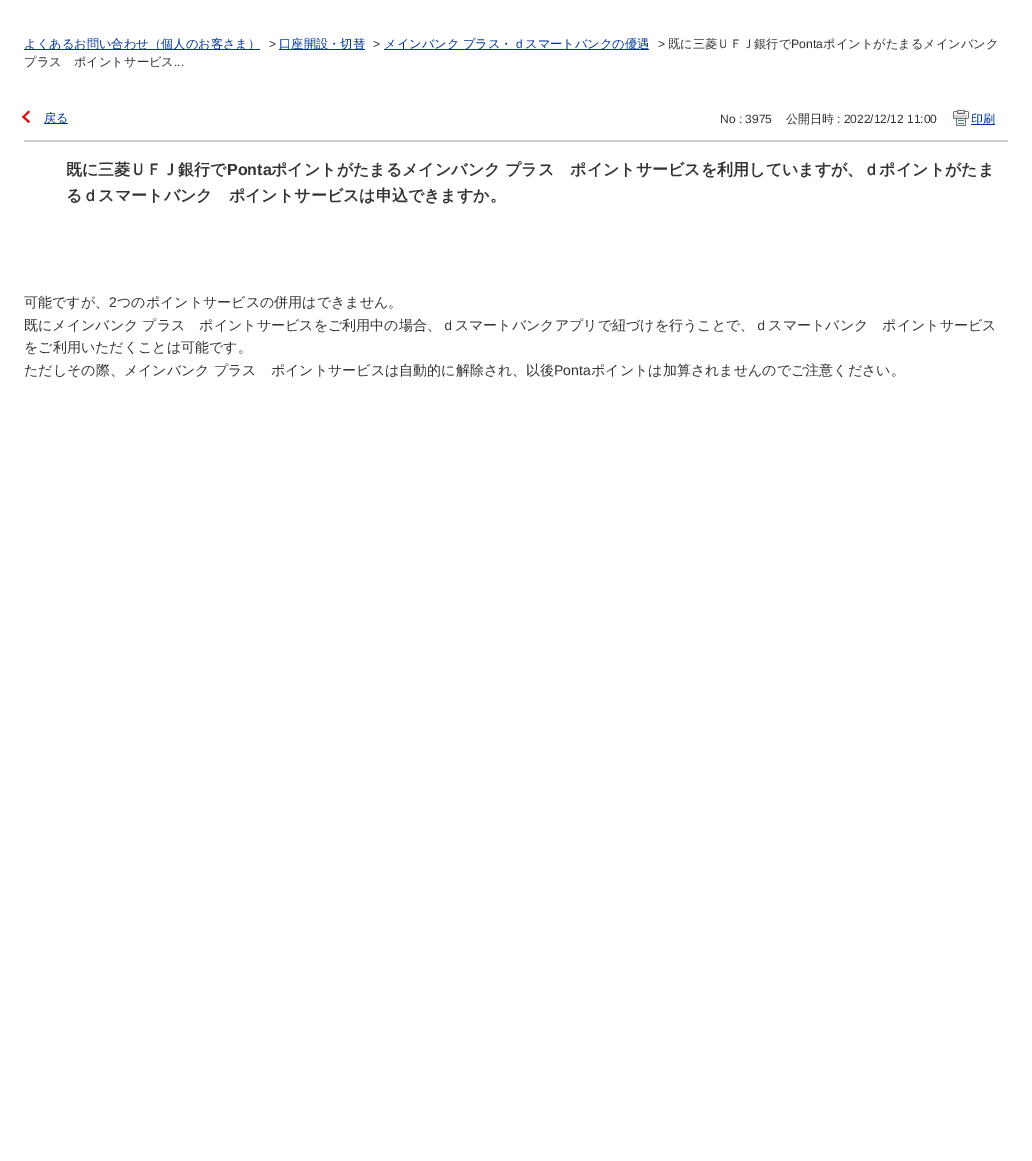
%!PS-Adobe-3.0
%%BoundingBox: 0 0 1032 1161
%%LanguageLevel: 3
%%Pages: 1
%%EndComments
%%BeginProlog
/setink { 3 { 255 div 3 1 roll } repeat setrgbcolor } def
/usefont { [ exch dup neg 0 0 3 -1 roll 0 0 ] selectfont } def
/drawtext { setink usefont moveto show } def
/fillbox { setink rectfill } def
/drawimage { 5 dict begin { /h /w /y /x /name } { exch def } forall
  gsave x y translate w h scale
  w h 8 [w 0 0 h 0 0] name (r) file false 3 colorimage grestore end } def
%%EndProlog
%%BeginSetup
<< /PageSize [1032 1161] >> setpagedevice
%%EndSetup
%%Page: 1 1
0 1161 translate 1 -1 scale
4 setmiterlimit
0 0 1032 1161 255 255 255 fillbox
24 49 236 1 0 51 153 fillbox
(よくあるお問い合わせ（個人のお客さま）) 24 48 /WenQuanYiZenHei-Medium 12.25 0 51 153 drawtext
(>) 269 48 /LiberationSans-Regular 12.25 51 51 51 drawtext
279 49 86 1 0 51 153 fillbox
(口座開設・切替) 279 48 /WenQuanYiZenHei-Medium 12.25 0 51 153 drawtext
(>) 373 48 /LiberationSans-Regular 12.25 51 51 51 drawtext
384 49 265 1 0 51 153 fillbox
(メインバンク プラス・ｄスマートバンクの優遇) 384 48 /WenQuanYiZenHei-Medium 12.25 0 51 153 drawtext
(>) 658 48 /LiberationSans-Regular 12.25 51 51 51 drawtext
(既に三菱ＵＦＪ銀行で) 668 48 /WenQuanYiZenHei-Medium 12.25 51 51 51 drawtext
(Ponta) 791 48 /LiberationSans-Regular 12.25 51 51 51 drawtext
(ポイントがたまるメインバンク) 823 48 /WenQuanYiZenHei-Medium 12.25 51 51 51 drawtext
(プラス　ポイントサービス) 24 66 /WenQuanYiZenHei-Medium 12.25 51 51 51 drawtext
(...) 174 66 /LiberationSans-Regular 12.25 51 51 51 drawtext
24 140 984 2 204 204 204 fillbox
216 12 25 setink
22 117 moveto 28.5 110.5 lineto 30 112 lineto 23.5 118 lineto closepath fill
22 117 moveto 23.5 115.5 lineto 30 121.5 lineto 28.5 123 lineto closepath fill
44 123 24 1 0 51 153 fillbox
(戻る) 44 122 /WenQuanYiZenHei-Medium 12 0 51 153 drawtext
(No : 3975) 720 123 /LiberationSans-Regular 12 51 51 51 drawtext
(公開日時) 786 123 /WenQuanYiZenHei-Medium 12 51 51 51 drawtext
(: 2022/12/12 11:00) 837 123 /LiberationSans-Regular 12 51 51 51 drawtext
(assets/img1.rgb) 953 110 16 16 drawimage
971 124 24 1 0 51 153 fillbox
(印刷) 971 123 /WenQuanYiZenHei-Medium 12 0 51 153 drawtext
(既に三菱ＵＦＪ銀行で) 66 175 /WenQuanYiZenHei-Bold 16 51 51 51 drawtext
(Ponta) 227 175 /LiberationSans-Bold 16 51 51 51 drawtext
(ポイントがたまるメインバンク プラス　ポイントサービスを利用していますが、ｄポイントがたま) 271 175 /WenQuanYiZenHei-Bold 16 51 51 51 drawtext
(るｄスマートバンク　ポイントサービスは申込できますか。) 66 201 /WenQuanYiZenHei-Bold 16 51 51 51 drawtext
(可能ですが、) 24 307 /WenQuanYiZenHei-Medium 14 51 51 51 drawtext
(2) 109 307 /LiberationSans-Regular 14 51 51 51 drawtext
(つのポイントサービスの併用はできません。) 117 307 /WenQuanYiZenHei-Medium 14 51 51 51 drawtext
(既にメインバンク プラス　ポイントサービスをご利用中の場合、ｄスマートバンクアプリで紐づけを行うことで、ｄスマートバンク　ポイントサービス) 24 330 /WenQuanYiZenHei-Medium 14 51 51 51 drawtext
(をご利用いただくことは可能です。) 24 352 /WenQuanYiZenHei-Medium 14 51 51 51 drawtext
(ただしその際、メインバンク プラス　ポイントサービスは自動的に解除され、以後) 24 375 /WenQuanYiZenHei-Medium 14 51 51 51 drawtext
(Ponta) 554 375 /LiberationSans-Regular 14 51 51 51 drawtext
(ポイントは加算されませんのでご注意ください。) 591 375 /WenQuanYiZenHei-Medium 14 51 51 51 drawtext
showpage
%%EOF
